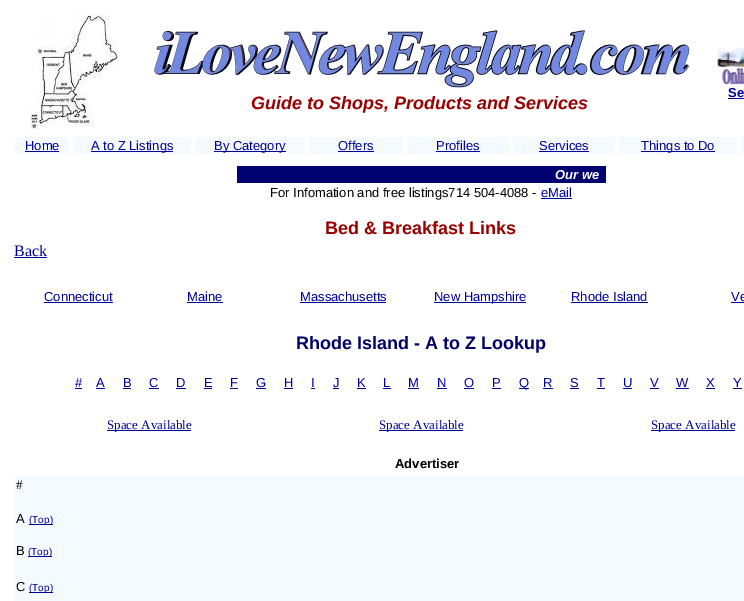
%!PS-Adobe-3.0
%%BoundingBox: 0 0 744 601
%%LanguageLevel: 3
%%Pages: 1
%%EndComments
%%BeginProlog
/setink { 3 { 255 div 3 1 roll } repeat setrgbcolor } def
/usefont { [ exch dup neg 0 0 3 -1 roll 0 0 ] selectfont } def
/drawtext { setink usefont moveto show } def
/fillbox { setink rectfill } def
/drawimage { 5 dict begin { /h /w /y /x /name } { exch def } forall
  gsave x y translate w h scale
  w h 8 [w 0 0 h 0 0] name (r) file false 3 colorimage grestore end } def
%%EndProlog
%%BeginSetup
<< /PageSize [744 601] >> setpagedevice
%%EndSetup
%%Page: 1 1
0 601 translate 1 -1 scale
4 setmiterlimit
0 0 744 601 255 255 255 fillbox
(assets/img1.rgb) 30 14 89 116 drawimage
(assets/img2.rgb) 717 47 27 38 drawimage
(Se) 728 97 /LiberationSans-Bold 13 0 0 153 drawtext
728 98 16 1 0 0 153 fillbox
(assets/img3.rgb) 154 30 536 58 drawimage
(Guide to Shops, Products and Services) 251 109 /LiberationSans-BoldItalic 18 153 0 0 drawtext
15 137 54 17 244 250 255 fillbox
(Home) 25 150 /LiberationSans-Regular 13 0 0 153 drawtext
25 151 34 1 0 0 153 fillbox
73 137 118 17 244 250 255 fillbox
91 151 82 1 0 0 153 fillbox
(A to Z Listings) 91 150 /LiberationSans-Regular 13 0 0 153 drawtext
195 137 110 17 244 250 255 fillbox
214 151 72 1 0 0 153 fillbox
(By Category) 214 150 /LiberationSans-Regular 13 0 0 153 drawtext
309 137 94 17 244 250 255 fillbox
(Offers) 338 150 /LiberationSans-Regular 13 0 0 153 drawtext
338 151 36 1 0 0 153 fillbox
407 137 102 17 244 250 255 fillbox
(Profiles) 436 150 /LiberationSans-Regular 13 0 0 153 drawtext
436 151 44 1 0 0 153 fillbox
513 137 102 17 244 250 255 fillbox
(Services) 539 150 /LiberationSans-Regular 13 0 0 153 drawtext
539 151 50 1 0 0 153 fillbox
619 137 118 17 244 250 255 fillbox
641 151 74 1 0 0 153 fillbox
(Things to Do) 641 150 /LiberationSans-Regular 13 0 0 153 drawtext
244 250 255 setink
740.5 136.5 moveto 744.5 136.5 lineto 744.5 154.5 lineto 740.5 154.5 lineto closepath gsave fill grestore
255 255 255 setink
stroke
237 166 369 17 0 0 113 fillbox
(Our we) 555 179 /LiberationSans-BoldItalic 13 255 255 255 drawtext
(For Infomation and free listings714 504-4088 -) 270 197 /LiberationSans-Regular 13 0 0 0 drawtext
(eMail) 541 197 /LiberationSans-Regular 13 0 0 153 drawtext
541 198 31 1 0 0 153 fillbox
(Bed & Breakfast Links) 325 234 /LiberationSans-Bold 18 153 0 0 drawtext
(Back) 14 256 /LiberationSerif-Regular 16 0 0 153 drawtext
14 257 33 1 0 0 153 fillbox
(Connecticut) 44 301 /LiberationSans-Regular 13 0 0 153 drawtext
44 302 69 1 0 0 153 fillbox
(Maine) 187 301 /LiberationSans-Regular 13 0 0 153 drawtext
187 302 36 1 0 0 153 fillbox
(Massachusetts) 300 301 /LiberationSans-Regular 13 0 0 153 drawtext
300 302 86 1 0 0 153 fillbox
434 302 92 1 0 0 153 fillbox
(New Hampshire) 434 301 /LiberationSans-Regular 13 0 0 153 drawtext
(Rhode Island) 571 301 /LiberationSans-Regular 13 0 0 153 drawtext
571 302 77 1 0 0 153 fillbox
(Ve) 731 301 /LiberationSans-Regular 13 0 0 153 drawtext
731 302 13 1 0 0 153 fillbox
(Rhode Island - A to Z Lookup) 296 349 /LiberationSans-Bold 18 0 0 102 drawtext
(#) 75 387 /LiberationSans-Regular 13 0 0 153 drawtext
75 388 7 1 0 0 153 fillbox
(A) 96 387 /LiberationSans-Regular 13 0 0 153 drawtext
96 388 9 1 0 0 153 fillbox
(B) 123 387 /LiberationSans-Regular 13 0 0 153 drawtext
123 388 8 1 0 0 153 fillbox
(C) 149 387 /LiberationSans-Regular 13 0 0 153 drawtext
149 388 10 1 0 0 153 fillbox
(D) 176 387 /LiberationSans-Regular 13 0 0 153 drawtext
176 388 10 1 0 0 153 fillbox
(E) 204 387 /LiberationSans-Regular 13 0 0 153 drawtext
204 388 8 1 0 0 153 fillbox
(F) 230 387 /LiberationSans-Regular 13 0 0 153 drawtext
230 388 8 1 0 0 153 fillbox
(G) 256 387 /LiberationSans-Regular 13 0 0 153 drawtext
256 388 10 1 0 0 153 fillbox
(H) 284 387 /LiberationSans-Regular 13 0 0 153 drawtext
284 388 9 1 0 0 153 fillbox
(I) 311 387 /LiberationSans-Regular 13 0 0 153 drawtext
311 388 4 1 0 0 153 fillbox
(J) 333 387 /LiberationSans-Regular 13 0 0 153 drawtext
333 388 6 1 0 0 153 fillbox
(K) 357 387 /LiberationSans-Regular 13 0 0 153 drawtext
357 388 9 1 0 0 153 fillbox
(L) 383 387 /LiberationSans-Regular 13 0 0 153 drawtext
383 388 8 1 0 0 153 fillbox
(M) 408 387 /LiberationSans-Regular 13 0 0 153 drawtext
408 388 11 1 0 0 153 fillbox
(N) 437 387 /LiberationSans-Regular 13 0 0 153 drawtext
437 388 10 1 0 0 153 fillbox
(O) 464 387 /LiberationSans-Regular 13 0 0 153 drawtext
464 388 10 1 0 0 153 fillbox
(P) 492 387 /LiberationSans-Regular 13 0 0 153 drawtext
492 388 9 1 0 0 153 fillbox
519 388 10 1 0 0 153 fillbox
(Q) 519 387 /LiberationSans-Regular 13 0 0 153 drawtext
(R) 543 387 /LiberationSans-Regular 13 0 0 153 drawtext
543 388 10 1 0 0 153 fillbox
(S) 570 387 /LiberationSans-Regular 13 0 0 153 drawtext
570 388 9 1 0 0 153 fillbox
(T) 597 387 /LiberationSans-Regular 13 0 0 153 drawtext
597 388 8 1 0 0 153 fillbox
(U) 623 387 /LiberationSans-Regular 13 0 0 153 drawtext
623 388 9 1 0 0 153 fillbox
(V) 650 387 /LiberationSans-Regular 13 0 0 153 drawtext
650 388 9 1 0 0 153 fillbox
(W) 676 387 /LiberationSans-Regular 13 0 0 153 drawtext
676 388 13 1 0 0 153 fillbox
(X) 706 387 /LiberationSans-Regular 13 0 0 153 drawtext
706 388 9 1 0 0 153 fillbox
(Y) 733 387 /LiberationSans-Regular 13 0 0 153 drawtext
733 388 9 1 0 0 153 fillbox
107 430 84 1 0 0 153 fillbox
(Space Available) 107 429 /LiberationSerif-Regular 13 0 0 153 drawtext
379 430 84 1 0 0 153 fillbox
(Space Available) 379 429 /LiberationSerif-Regular 13 0 0 153 drawtext
651 430 84 1 0 0 153 fillbox
(Space Available) 651 429 /LiberationSerif-Regular 13 0 0 153 drawtext
(Advertiser) 395 468 /LiberationSans-Bold 13 0 0 0 drawtext
15 476 729 125 244 250 255 fillbox
(#) 16 489 /LiberationSerif-Regular 13 0 0 0 drawtext
(A) 16 523 /LiberationSans-Regular 13 0 0 0 drawtext
29 524 24 1 0 0 153 fillbox
(\(Top\)) 29 523 /LiberationSans-Regular 10 0 0 153 drawtext
(B) 16 555 /LiberationSans-Regular 13 0 0 0 drawtext
28 556 24 1 0 0 153 fillbox
(\(Top\)) 28 555 /LiberationSans-Regular 10 0 0 153 drawtext
(C) 16 591 /LiberationSans-Regular 13 0 0 0 drawtext
29 592 24 1 0 0 153 fillbox
(\(Top\)) 29 591 /LiberationSans-Regular 10 0 0 153 drawtext
showpage
%%EOF
